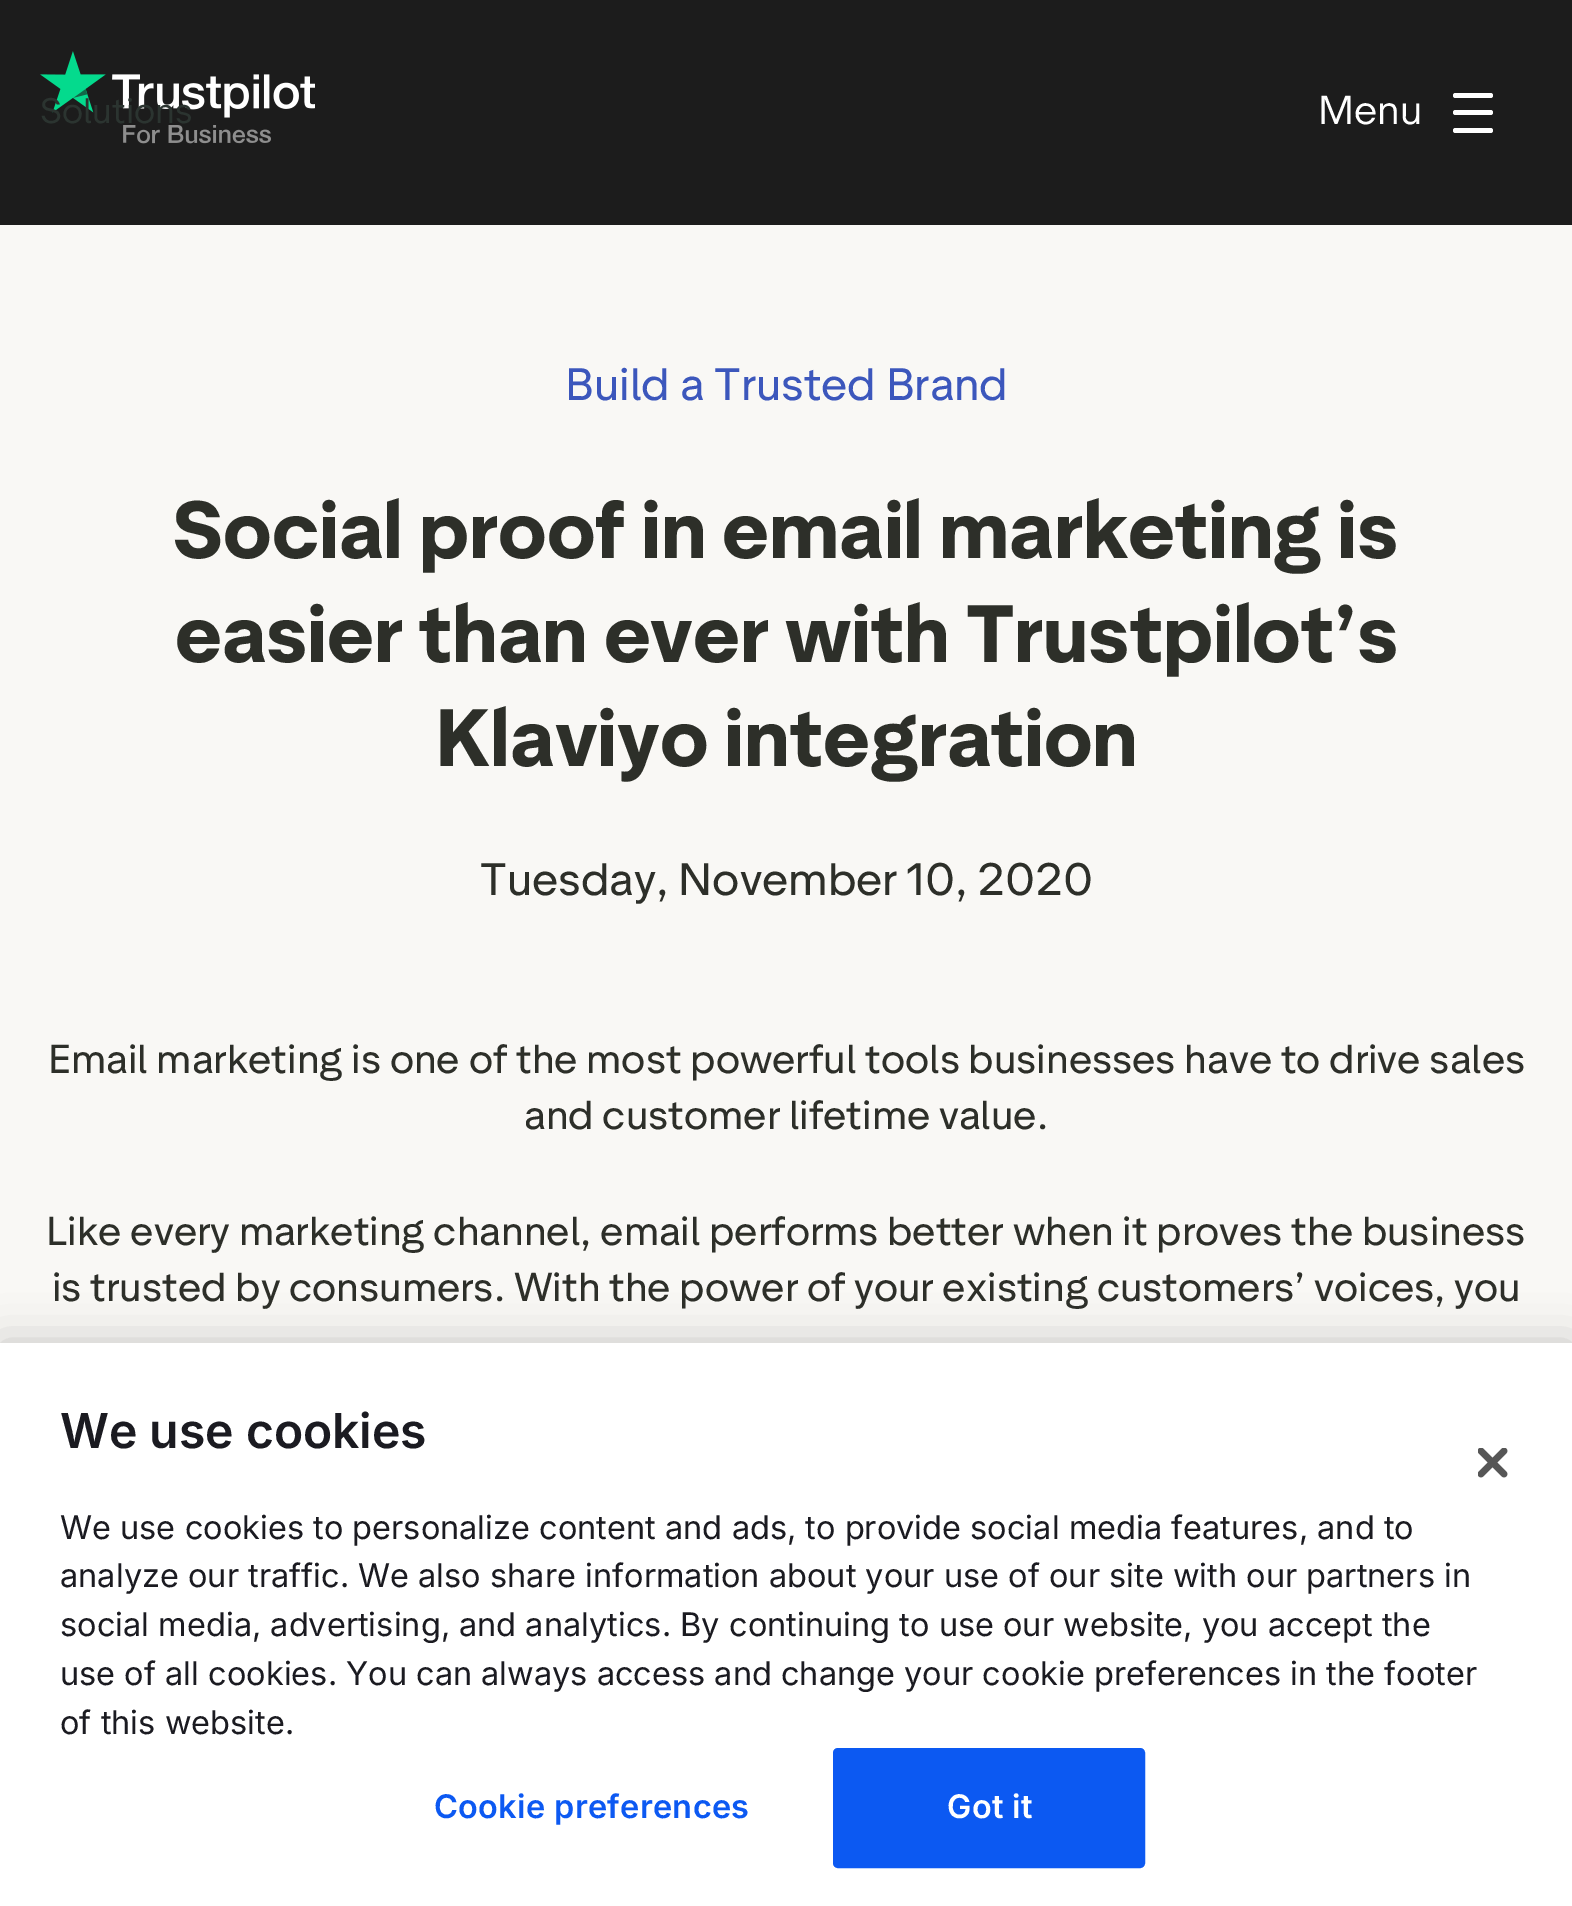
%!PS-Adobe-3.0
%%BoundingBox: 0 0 1572 1906
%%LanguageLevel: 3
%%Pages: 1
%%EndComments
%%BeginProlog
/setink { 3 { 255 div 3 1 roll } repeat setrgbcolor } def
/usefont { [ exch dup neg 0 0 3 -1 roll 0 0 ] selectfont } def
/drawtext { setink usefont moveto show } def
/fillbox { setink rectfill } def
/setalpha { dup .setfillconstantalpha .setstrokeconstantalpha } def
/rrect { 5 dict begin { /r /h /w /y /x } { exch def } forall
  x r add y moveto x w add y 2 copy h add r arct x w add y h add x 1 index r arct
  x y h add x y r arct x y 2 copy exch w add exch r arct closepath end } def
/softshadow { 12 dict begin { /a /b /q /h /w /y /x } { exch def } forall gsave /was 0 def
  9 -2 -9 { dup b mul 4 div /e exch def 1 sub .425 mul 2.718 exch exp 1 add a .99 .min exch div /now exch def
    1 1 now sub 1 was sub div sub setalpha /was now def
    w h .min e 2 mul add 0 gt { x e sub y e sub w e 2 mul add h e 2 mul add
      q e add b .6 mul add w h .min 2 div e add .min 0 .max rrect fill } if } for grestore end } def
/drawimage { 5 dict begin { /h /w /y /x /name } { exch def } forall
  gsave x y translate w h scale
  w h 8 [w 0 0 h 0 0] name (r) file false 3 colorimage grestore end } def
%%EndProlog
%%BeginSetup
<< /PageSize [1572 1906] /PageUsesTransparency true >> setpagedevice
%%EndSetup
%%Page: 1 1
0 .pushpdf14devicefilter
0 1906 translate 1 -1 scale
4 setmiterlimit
0 0 1572 1906 249 248 245 fillbox
0 0 1572 225 28 28 28 fillbox
(assets/img1.rgb) 40 51 275 93 drawimage
(Menu) 1318 124 /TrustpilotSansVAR-Light 40 255 255 255 drawtext
1453 93 40 5 2.5 rrect fill
1453 110 40 5 2.5 rrect fill
1453 128 40 5 2.5 rrect fill
(Solutions) 40 123 /TrustpilotSansVAR-Light 35 43 52 48 drawtext
(Build a Trusted Brand) 565 400 /TrustpilotSansVAR-Regular 45 60 87 188 drawtext
(Social proof in email marketing is) 173 558 /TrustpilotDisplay-ExtraBold 80 45 47 41 drawtext
(easier than ever with Trustpilot’s) 175 662 /TrustpilotDisplay-ExtraBold 80 45 47 41 drawtext
(Klaviyo integration) 435 766 /TrustpilotDisplay-ExtraBold 80 45 47 41 drawtext
(Tuesday, November 10, 2020) 480 895 /TrustpilotSansVAR-Regular 45 45 47 41 drawtext
(Email marketing is one of the most powerful tools businesses have to drive sales) 48 1073 /TrustpilotSansVAR-Regular 40 45 47 41 drawtext
(and customer lifetime value.) 524 1129 /TrustpilotSansVAR-Regular 40 45 47 41 drawtext
(Like every marketing channel, email performs better when it proves the business) 46 1245 /TrustpilotSansVAR-Regular 40 45 47 41 drawtext
(is trusted by consumers. With the power of your existing customers’ voices, you) 52 1301 /TrustpilotSansVAR-Regular 40 45 47 41 drawtext
0 0 0 setink
0 1343 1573 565 0 22.5 0.2 softshadow
0 1343 1572 563 255 255 255 fillbox
(We use cookies) 60 1448 /Inter-SemiBold 48 27 27 33 drawtext
(We use cookies to personalize content and ads, to provide social media features, and to) 60 1539 /Inter-Regular 32.5 27 27 33 drawtext
(analyze our traffic. We also share information about your use of our site with our partners in) 60 1587 /Inter-Regular 32.5 27 27 33 drawtext
(social media, advertising, and analytics. By) 60 1636 /Inter-Regular 32.5 27 27 33 drawtext
(continuing to use our website, you accept the) 729 1636 /Inter-Regular 32.5 27 27 33 drawtext
(use of all cookies. You can always access and change your cookie preferences in the footer) 60 1685 /Inter-Regular 32.5 27 27 33 drawtext
(of this website.) 60 1734 /Inter-Regular 32.5 27 27 33 drawtext
/Inter-SemiBold 32.5 usefont
12 89 242 setink
434 1818 moveto 0.3 0 (Cookie preferences) ashow
834.5 1749.5 309 117 3.5 rrect gsave fill grestore
3 setlinewidth
stroke
255 255 255 setink
947 1818 moveto 0.3 0 (Got it) ashow
(assets/img2.rgb) 1478 1448 30 30 drawimage
.poppdf14devicefilter showpage
%%EOF
